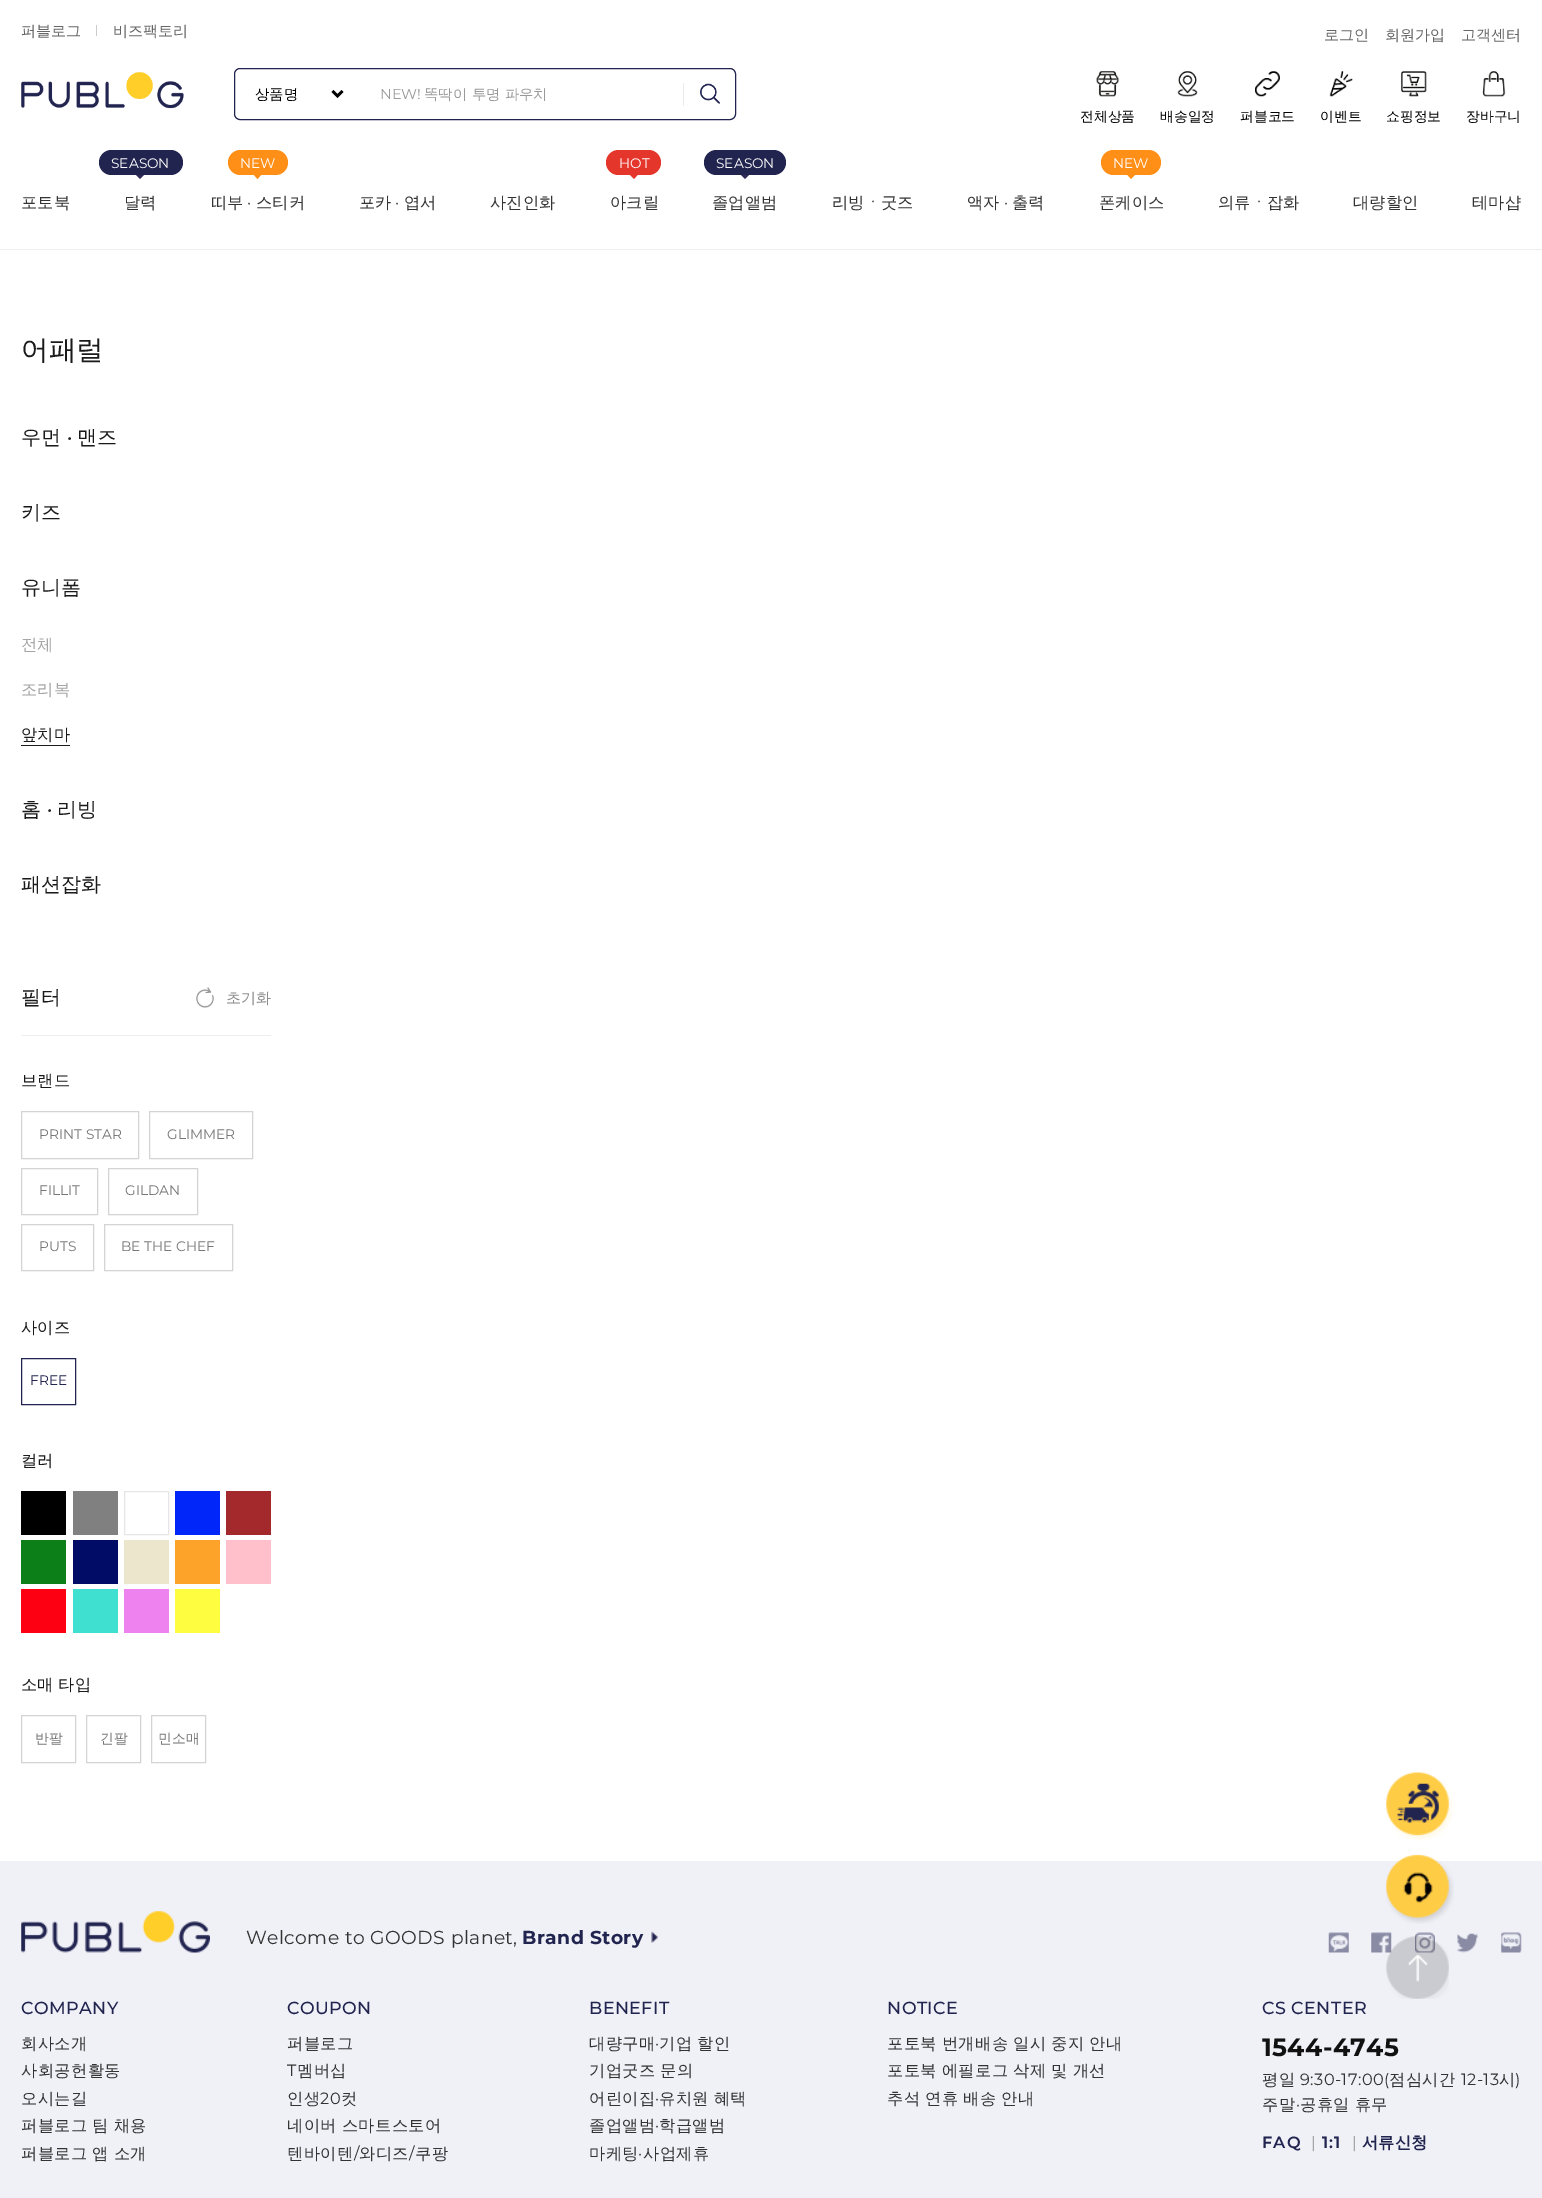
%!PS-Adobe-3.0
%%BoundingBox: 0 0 1542 2198
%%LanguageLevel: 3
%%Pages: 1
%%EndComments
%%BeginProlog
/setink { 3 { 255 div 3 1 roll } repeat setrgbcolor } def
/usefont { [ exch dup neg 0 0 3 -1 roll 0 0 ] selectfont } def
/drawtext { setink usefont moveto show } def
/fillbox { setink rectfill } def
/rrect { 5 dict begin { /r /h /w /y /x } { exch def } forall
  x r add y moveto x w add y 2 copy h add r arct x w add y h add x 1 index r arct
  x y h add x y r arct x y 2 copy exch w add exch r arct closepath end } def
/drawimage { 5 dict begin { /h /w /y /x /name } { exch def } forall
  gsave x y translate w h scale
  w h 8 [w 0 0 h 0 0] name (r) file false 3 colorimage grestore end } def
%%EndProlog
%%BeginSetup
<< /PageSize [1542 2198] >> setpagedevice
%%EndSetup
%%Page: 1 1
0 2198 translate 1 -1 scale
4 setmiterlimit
0 0 1542 2198 255 255 255 fillbox
0 249 1542 1 238 238 238 fillbox
(퍼블로그) 21 36 /WenQuanYiZenHei-Medium 15 102 102 102 drawtext
96 25 1 11 204 204 204 fillbox
(비즈팩토리) 113 36 /WenQuanYiZenHei-Medium 15 102 102 102 drawtext
(로그인) 1324 40 /WenQuanYiZenHei-Medium 15 102 102 102 drawtext
(회원가입) 1385 40 /WenQuanYiZenHei-Medium 15 102 102 102 drawtext
(고객센터) 1461 40 /WenQuanYiZenHei-Medium 15 102 102 102 drawtext
(assets/img1.rgb) 21 72 163 37 drawimage
34 36 80 setink
234.5 68.5 501 51 5.5 rrect stroke
0 0 0 setink
2.5 setlinewidth
332.5 91 moveto 337.5 96 lineto 342.5 91 lineto stroke
(상품명) 255 99 /WenQuanYiZenHei-Medium 14.4 0 0 0 drawtext
(NEW!) 380 99 /Montserrat-Regular 14.4 153 153 153 drawtext
(똑딱이 투명 파우치) 424 99 /WenQuanYiZenHei-Medium 14.4 153 153 153 drawtext
(assets/img2.rgb) 700 83 20 21 drawimage
683 83 1 23 232 236 239 fillbox
(assets/img3.rgb) 1096 71 24 26 drawimage
(전체상품) 1080 121 /WenQuanYiZenHei-Medium 13.75 0 0 0 drawtext
(assets/img4.rgb) 1177 71 21 26 drawimage
(배송일정) 1160 121 /WenQuanYiZenHei-Medium 13.75 0 0 0 drawtext
(assets/img5.rgb) 1255 71 25 26 drawimage
(퍼블코드) 1240 121 /WenQuanYiZenHei-Medium 13.75 0 0 0 drawtext
(assets/img6.rgb) 1329 71 24 26 drawimage
(이벤트) 1320 121 /WenQuanYiZenHei-Medium 13.75 0 0 0 drawtext
(assets/img7.rgb) 1401 71 26 26 drawimage
(쇼핑정보) 1386 121 /WenQuanYiZenHei-Medium 13.75 0 0 0 drawtext
(assets/img8.rgb) 1482 71 24 26 drawimage
(장바구니) 1466 121 /WenQuanYiZenHei-Medium 13.75 0 0 0 drawtext
(포토북) 21 208 /WenQuanYiZenHei-Medium 16.25 51 51 51 drawtext
34 36 80 setink
99 150 84 25 12.5 rrect fill
(SEASON) 111 168 /Montserrat-Regular 13.75 255 255 255 drawtext
47 42 87 setink
136 175 moveto 144 175 lineto 140 179 lineto closepath fill
(달력) 124 208 /WenQuanYiZenHei-Medium 16.25 51 51 51 drawtext
255 143 23 setink
228 150 60 25 12.5 rrect fill
(NEW) 240 168 /Montserrat-Regular 13.75 255 255 255 drawtext
255 143 23 setink
254 175 moveto 261 175 lineto 257.5 179 lineto closepath fill
(띠부) 211 208 /WenQuanYiZenHei-Medium 16.25 51 51 51 drawtext
(·) 247 208 /Montserrat-Regular 16.25 51 51 51 drawtext
(스티커) 256 208 /WenQuanYiZenHei-Medium 16.25 51 51 51 drawtext
(포카) 359 208 /WenQuanYiZenHei-Medium 16.25 51 51 51 drawtext
(·) 395 208 /Montserrat-Regular 16.25 51 51 51 drawtext
(엽서) 404 208 /WenQuanYiZenHei-Medium 16.25 51 51 51 drawtext
(사진인화) 490 208 /WenQuanYiZenHei-Medium 16.25 51 51 51 drawtext
229 54 44 setink
606 150 55 25 12.5 rrect fill
(HOT) 619 168 /Montserrat-Regular 13.75 255 255 255 drawtext
229 54 44 setink
630 175 moveto 637.5 175 lineto 634 179 lineto closepath fill
(아크릴) 610 208 /WenQuanYiZenHei-Medium 16.25 51 51 51 drawtext
34 36 80 setink
704 150 82 25 12.5 rrect fill
(SEASON) 716 168 /Montserrat-Regular 13.75 255 255 255 drawtext
47 42 87 setink
741 175 moveto 749 175 lineto 745 179 lineto closepath fill
(졸업앨범) 712 208 /WenQuanYiZenHei-Medium 16.25 51 51 51 drawtext
(리빙ㆍ굿즈) 832 208 /WenQuanYiZenHei-Medium 16.25 51 51 51 drawtext
(액자) 967 208 /WenQuanYiZenHei-Medium 16.25 51 51 51 drawtext
(·) 1004 208 /Montserrat-Regular 16.25 51 51 51 drawtext
(출력) 1012 208 /WenQuanYiZenHei-Medium 16.25 51 51 51 drawtext
255 143 23 setink
1101 150 60 25 12.5 rrect fill
(NEW) 1113 168 /Montserrat-Regular 13.75 255 255 255 drawtext
255 143 23 setink
1127.5 175 moveto 1135 175 lineto 1131 179 lineto closepath fill
(폰케이스) 1099 208 /WenQuanYiZenHei-Medium 16.25 51 51 51 drawtext
(의류ㆍ잡화) 1218 208 /WenQuanYiZenHei-Medium 16.25 51 51 51 drawtext
(대량할인) 1353 208 /WenQuanYiZenHei-Medium 16.25 51 51 51 drawtext
(테마샵) 1472 208 /WenQuanYiZenHei-Medium 16.25 51 51 51 drawtext
(어패럴) 21 359 /WenQuanYiZenHei-Medium 27.5 26 26 26 drawtext
(우먼) 21 444 /WenQuanYiZenHei-Medium 20 26 26 26 drawtext
(·) 67 444 /Montserrat-Medium 20 26 26 26 drawtext
(맨즈) 77 444 /WenQuanYiZenHei-Medium 20 26 26 26 drawtext
(키즈) 21 519 /WenQuanYiZenHei-Medium 20 26 26 26 drawtext
(유니폼) 21 594 /WenQuanYiZenHei-Medium 20 26 26 26 drawtext
(전체) 21 650 /WenQuanYiZenHei-Medium 16.25 166 166 166 drawtext
(조리복) 21 695 /WenQuanYiZenHei-Medium 16.25 166 166 166 drawtext
(앞치마) 21 740 /WenQuanYiZenHei-Medium 16.25 26 26 26 drawtext
21 745 49 1 26 26 26 fillbox
(홈) 21 816 /WenQuanYiZenHei-Medium 20 26 26 26 drawtext
(·) 47 816 /Montserrat-Medium 20 26 26 26 drawtext
(리빙) 57 816 /WenQuanYiZenHei-Medium 20 26 26 26 drawtext
(패션잡화) 21 891 /WenQuanYiZenHei-Medium 20 26 26 26 drawtext
21 1035 250 1 238 238 238 fillbox
(필터) 21 1004 /WenQuanYiZenHei-Medium 20 26 26 26 drawtext
(assets/img9.rgb) 196 987 18 21 drawimage
(초기화) 226 1003 /WenQuanYiZenHei-Medium 15 141 141 141 drawtext
(브랜드) 21 1086 /WenQuanYiZenHei-Medium 16.25 26 26 26 drawtext
212 212 212 setink
1 setlinewidth
21.5 1111.5 117 47 rectstroke
(PRINT STAR) 39 1139 /Montserrat-Regular 13.75 119 119 119 drawtext
212 212 212 setink
149.5 1111.5 103 47 rectstroke
(GLIMMER) 167 1139 /Montserrat-Regular 13.75 119 119 119 drawtext
212 212 212 setink
21.5 1168.5 76 46 rectstroke
(FILLIT) 39 1195 /Montserrat-Regular 13.75 119 119 119 drawtext
212 212 212 setink
108.5 1168.5 89 46 rectstroke
(GILDAN) 125 1195 /Montserrat-Regular 13.75 119 119 119 drawtext
212 212 212 setink
21.5 1224.5 72 46 rectstroke
(PUTS) 39 1251 /Montserrat-Regular 13.75 119 119 119 drawtext
212 212 212 setink
104.5 1224.5 128 46 rectstroke
(BE THE CHEF) 121 1251 /Montserrat-Regular 13.75 119 119 119 drawtext
(사이즈) 21 1333 /WenQuanYiZenHei-Medium 16.25 26 26 26 drawtext
34 36 80 setink
21.5 1358.5 54 46 rectstroke
(FREE) 30 1385 /Montserrat-Regular 13.75 34 36 80 drawtext
(컬러) 21 1466 /WenQuanYiZenHei-Medium 16.25 26 26 26 drawtext
21 1491 45 44 0 0 0 fillbox
73 1491 45 44 128 128 128 fillbox
230 230 230 setink
124.5 1491.5 44 43 rectstroke
175 1491 45 44 0 38 249 fillbox
226 1491 45 44 164 41 44 fillbox
21 1540 45 44 13 127 25 fillbox
73 1540 45 44 0 12 101 fillbox
124 1540 45 44 236 230 204 fillbox
175 1540 45 44 254 163 42 fillbox
226 1540 45 44 255 192 203 fillbox
21 1589 45 44 253 0 18 fillbox
73 1589 45 44 64 224 208 fillbox
124 1589 45 44 238 130 238 fillbox
175 1589 45 44 255 253 64 fillbox
(소매 타입) 21 1690 /WenQuanYiZenHei-Medium 16.25 26 26 26 drawtext
212 212 212 setink
21.5 1715.5 54 47 rectstroke
(반팔) 35 1743 /WenQuanYiZenHei-Medium 13.75 119 119 119 drawtext
212 212 212 setink
86.5 1715.5 54 47 rectstroke
(긴팔) 100 1743 /WenQuanYiZenHei-Medium 13.75 119 119 119 drawtext
212 212 212 setink
151.5 1715.5 54 47 rectstroke
(민소매) 158 1743 /WenQuanYiZenHei-Medium 13.75 119 119 119 drawtext
(assets/img10.rgb) 1386 1772 68 69 drawimage
0 1861 1542 337 240 241 247 fillbox
(assets/img11.rgb) 1386 1854 68 70 drawimage
(assets/img16.rgb) 1371 1932 21 21 drawimage
(assets/img17.rgb) 1415 1932 20 21 drawimage
(assets/img12.rgb) 1386 1936 63 63 drawimage
(assets/img13.rgb) 21 1911 189 42 drawimage
/Montserrat-Regular 18.75 usefont
51 51 51 setink
246 1944 moveto 0.4 0 (Welcome to GOODS planet,) ashow
/Montserrat-Bold 18.75 usefont
34 36 80 setink
522 1944 moveto 0.4 0 (Brand Story) ashow
(assets/img14.rgb) 651 1931 8 12 drawimage
(assets/img15.rgb) 1328 1932 21 21 drawimage
(assets/img18.rgb) 1457 1933 21 20 drawimage
(assets/img19.rgb) 1501 1932 21 21 drawimage
/Montserrat-Medium 17.5 usefont
21 2014 moveto 0.4 0 (COMPANY) ashow
/WenQuanYiZenHei-Medium 16.25 usefont
51 51 51 setink
21 2049 moveto 0.4 0 (회사소개) ashow
21 2076 moveto 0.4 0 (사회공헌활동) ashow
21 2104 moveto 0.4 0 (오시는길) ashow
21 2131 moveto -0.5 0 32 0.4 0 (퍼블로그 팀 채용) awidthshow
21 2159 moveto -0.5 0 32 0.4 0 (퍼블로그 앱 소개) awidthshow
/Montserrat-Medium 17.5 usefont
34 36 80 setink
287 2014 moveto 0.4 0 (COUPON) ashow
/WenQuanYiZenHei-Medium 16.25 usefont
51 51 51 setink
287 2049 moveto 0.4 0 (퍼블로그) ashow
/Montserrat-Regular 16.25 usefont
287 2076 moveto 0.4 0 (T) ashow
/WenQuanYiZenHei-Medium 16.25 usefont
297 2076 moveto 0.4 0 (멤버십) ashow
287 2104 moveto 0.4 0 (인생) ashow
/Montserrat-Regular 16.25 usefont
320 2104 moveto 0.4 0 (20) ashow
/WenQuanYiZenHei-Medium 16.25 usefont
341 2104 moveto 0.4 0 (컷) ashow
287 2131 moveto -0.5 0 32 0.4 0 (네이버 스마트스토어) awidthshow
287 2159 moveto 0.4 0 (텐바이텐) ashow
/Montserrat-Regular 16.25 usefont
354 2159 moveto 0.4 0 (/) ashow
/WenQuanYiZenHei-Medium 16.25 usefont
359 2159 moveto 0.4 0 (와디즈) ashow
/Montserrat-Regular 16.25 usefont
409 2159 moveto 0.4 0 (/) ashow
/WenQuanYiZenHei-Medium 16.25 usefont
415 2159 moveto 0.4 0 (쿠팡) ashow
/Montserrat-Medium 17.5 usefont
34 36 80 setink
589 2014 moveto 0.4 0 (BENEFIT) ashow
/WenQuanYiZenHei-Medium 16.25 usefont
51 51 51 setink
589 2049 moveto 0.4 0 (대량구매) ashow
/Montserrat-Regular 16.25 usefont
655 2049 moveto 0.4 0 (·) ashow
/WenQuanYiZenHei-Medium 16.25 usefont
659 2049 moveto -0.5 0 32 0.4 0 (기업 할인) awidthshow
589 2076 moveto -0.5 0 32 0.4 0 (기업굿즈 문의) awidthshow
589 2104 moveto 0.4 0 (어린이집) ashow
/Montserrat-Regular 16.25 usefont
655 2104 moveto 0.4 0 (·) ashow
/WenQuanYiZenHei-Medium 16.25 usefont
659 2104 moveto -0.5 0 32 0.4 0 (유치원 혜택) awidthshow
589 2131 moveto 0.4 0 (졸업앨범) ashow
/Montserrat-Regular 16.25 usefont
655 2131 moveto 0.4 0 (·) ashow
/WenQuanYiZenHei-Medium 16.25 usefont
659 2131 moveto 0.4 0 (학급앨범) ashow
589 2159 moveto 0.4 0 (마케팅) ashow
/Montserrat-Regular 16.25 usefont
638 2159 moveto 0.4 0 (·) ashow
/WenQuanYiZenHei-Medium 16.25 usefont
643 2159 moveto 0.4 0 (사업제휴) ashow
/Montserrat-Medium 17.5 usefont
34 36 80 setink
887 2014 moveto 0.4 0 (NOTICE) ashow
/WenQuanYiZenHei-Medium 16.25 usefont
51 51 51 setink
887 2049 moveto -0.5 0 32 0.4 0 (포토북 번개배송 일시 중지 안내) awidthshow
887 2076 moveto -0.5 0 32 0.4 0 (포토북 에필로그 삭제 및 개선) awidthshow
887 2104 moveto -0.5 0 32 0.4 0 (추석 연휴 배송 안내) awidthshow
/Montserrat-Medium 17.5 usefont
34 36 80 setink
1262 2014 moveto 0.4 0 (CS CENTER) ashow
/Montserrat-Bold 25 usefont
17 17 17 setink
1262 2056 moveto 0.4 0 (1544-4745) ashow
/WenQuanYiZenHei-Medium 16.25 usefont
51 51 51 setink
1262 2085 moveto 0.4 0 (평일) ashow
/Montserrat-Regular 16.25 usefont
1300 2085 moveto 0.4 0 (9:30-17:00\() ashow
/WenQuanYiZenHei-Medium 16.25 usefont
1389 2085 moveto 0.4 0 (점심시간) ashow
/Montserrat-Regular 16.25 usefont
1461 2085 moveto 0.4 0 (12-13) ashow
/WenQuanYiZenHei-Medium 16.25 usefont
1499 2085 moveto 0.4 0 (시) ashow
/Montserrat-Regular 16.25 usefont
1515 2085 moveto 0.4 0 (\)) ashow
/WenQuanYiZenHei-Medium 16.25 usefont
1262 2110 moveto 0.4 0 (주말) ashow
/Montserrat-Regular 16.25 usefont
1296 2110 moveto 0.4 0 (·) ashow
/WenQuanYiZenHei-Medium 16.25 usefont
1300 2110 moveto -0.5 0 32 0.4 0 (공휴일 휴무) awidthshow
/Montserrat-SemiBold 16.25 usefont
34 36 80 setink
1262 2148 moveto 1 0 (FAQ) ashow
/Montserrat-Regular 16.25 usefont
166 166 166 setink
1311 2148 moveto 1 0 (|) ashow
/Montserrat-SemiBold 16.25 usefont
34 36 80 setink
1322 2148 moveto 1 0 (1:1) ashow
(|) 1352 2148 /Montserrat-Regular 16.25 166 166 166 drawtext
(서류신청) 1362 2148 /WenQuanYiZenHei-Bold 16.25 34 36 80 drawtext
showpage
%%EOF
